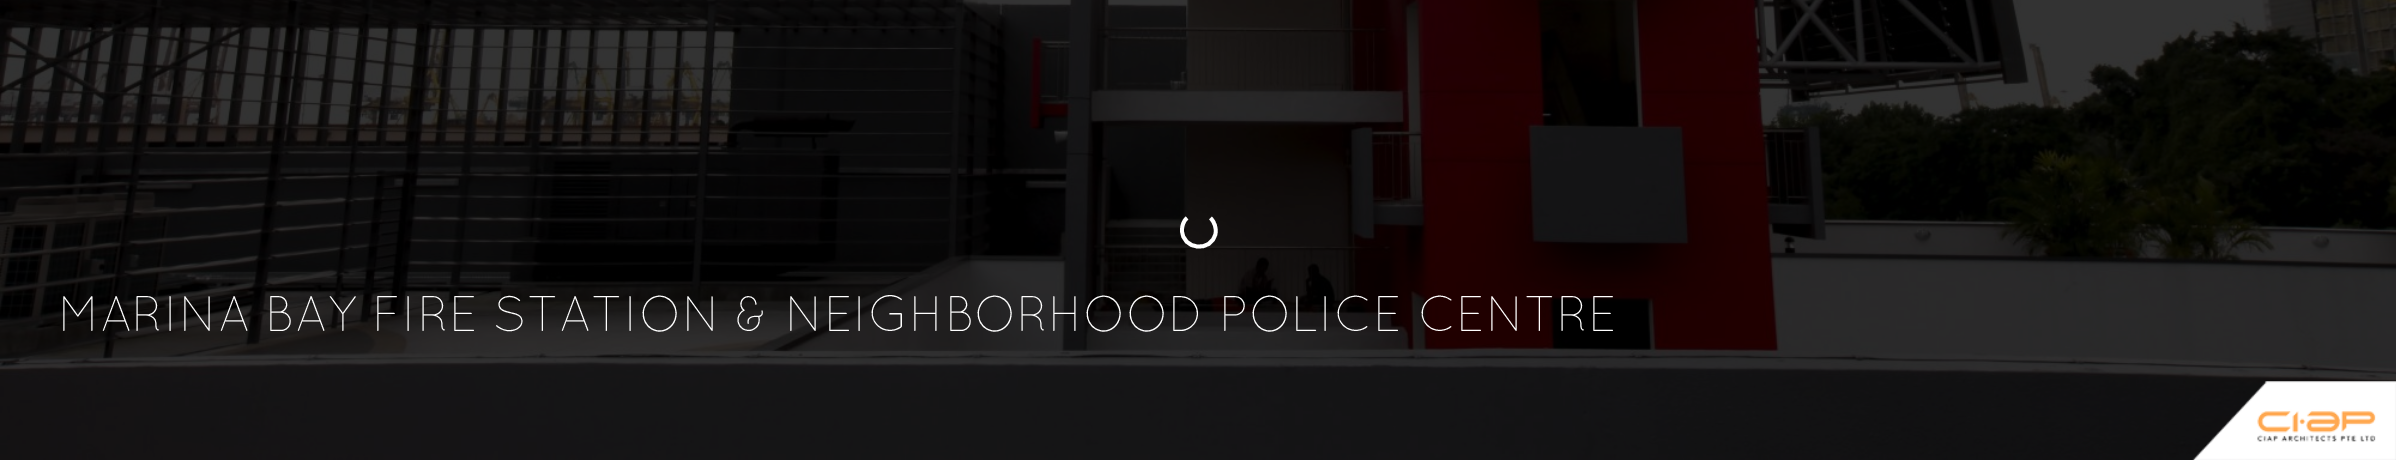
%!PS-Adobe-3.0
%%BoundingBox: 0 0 2396 460
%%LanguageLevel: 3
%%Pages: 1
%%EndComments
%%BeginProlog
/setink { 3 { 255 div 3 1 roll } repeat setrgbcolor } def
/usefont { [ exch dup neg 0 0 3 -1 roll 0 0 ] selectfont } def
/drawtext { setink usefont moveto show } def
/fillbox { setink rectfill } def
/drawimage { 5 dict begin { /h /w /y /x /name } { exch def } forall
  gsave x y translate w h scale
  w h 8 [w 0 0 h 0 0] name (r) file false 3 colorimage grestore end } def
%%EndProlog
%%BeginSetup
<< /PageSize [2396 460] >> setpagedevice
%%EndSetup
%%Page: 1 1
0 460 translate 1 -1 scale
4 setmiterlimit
0 0 2396 460 255 255 255 fillbox
(assets/img1.rgb) 0 0 2396 460 drawimage
3.8 setlinewidth
1210.5 218 moveto 1214.5 222 1216.5 228 1215.5 233.5 curveto 1211.5 253 1182 250 1182 230 curveto 1182 225.5 1183.5 221 1187 218 curveto stroke
(MARINA BAY FIRE STATION & NEIGHBORHOOD POLICE CENTRE) 58 331 /Quicksand-Light 50 255 255 255 drawtext
(assets/img2.rgb) 2192 381 204 79 drawimage
showpage
%%EOF
